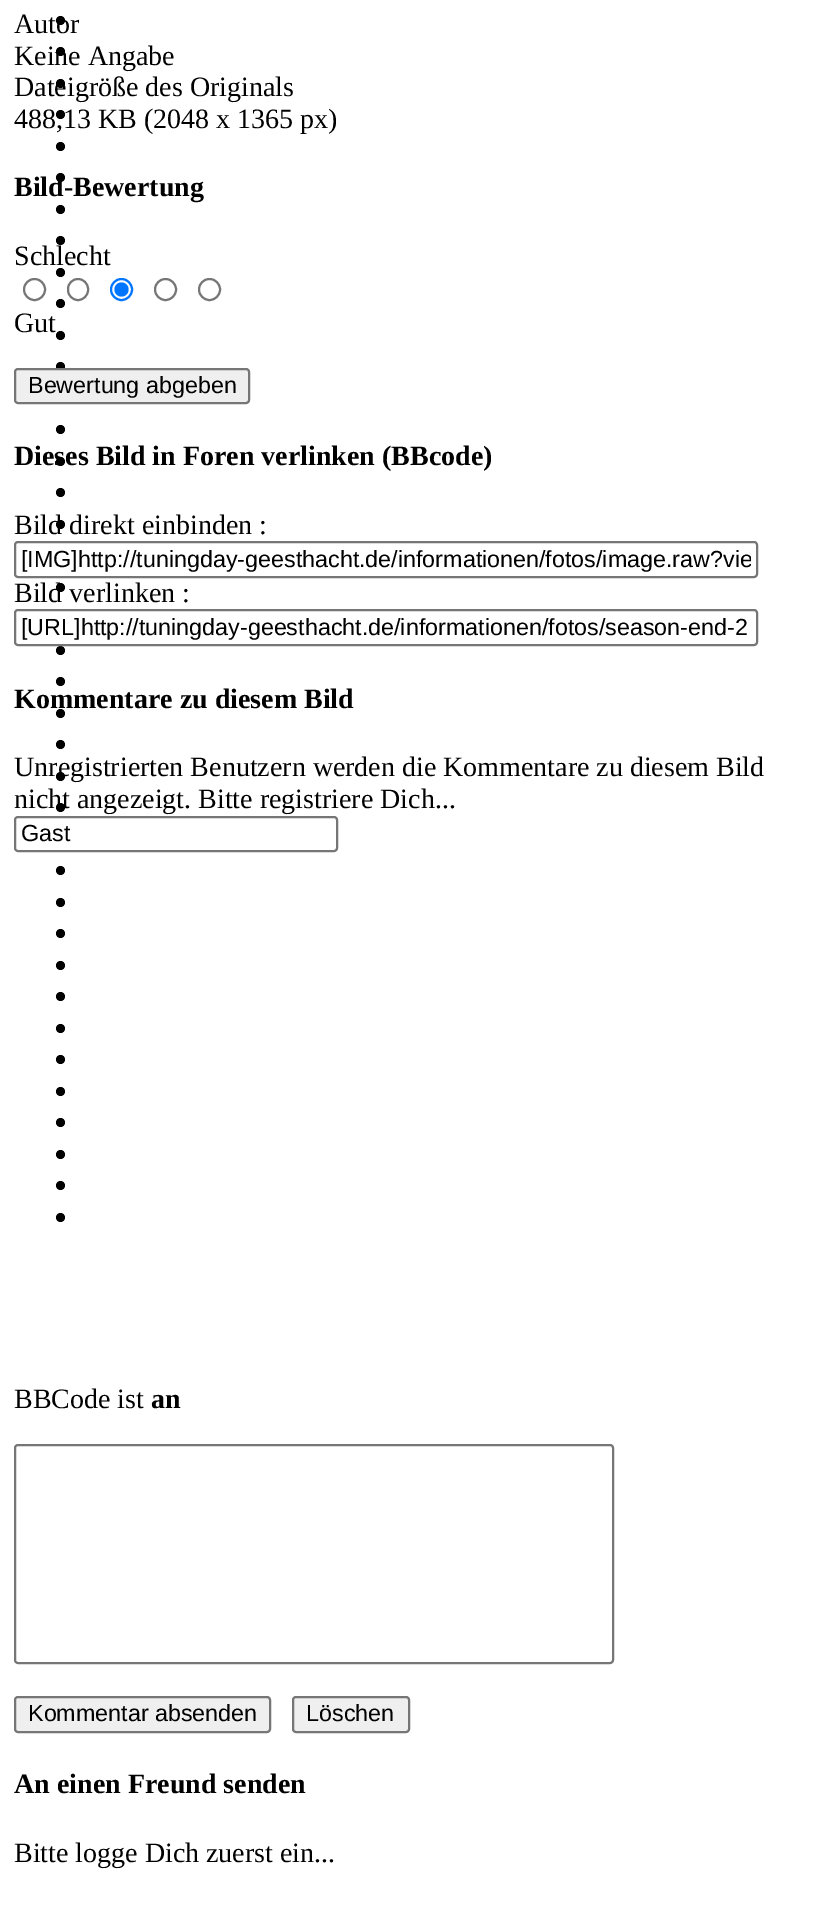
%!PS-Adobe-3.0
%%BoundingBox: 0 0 837 1913
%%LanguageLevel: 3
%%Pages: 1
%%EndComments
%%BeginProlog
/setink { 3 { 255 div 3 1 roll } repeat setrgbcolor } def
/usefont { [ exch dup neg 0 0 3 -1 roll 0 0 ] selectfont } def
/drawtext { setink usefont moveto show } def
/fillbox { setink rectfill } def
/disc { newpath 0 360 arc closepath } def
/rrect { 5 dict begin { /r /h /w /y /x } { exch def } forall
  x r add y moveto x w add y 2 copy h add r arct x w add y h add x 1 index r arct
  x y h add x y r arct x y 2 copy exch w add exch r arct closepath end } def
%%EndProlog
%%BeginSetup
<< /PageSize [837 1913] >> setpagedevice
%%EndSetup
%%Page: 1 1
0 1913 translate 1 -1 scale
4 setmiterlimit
0 0 837 1913 255 255 255 fillbox
0 0 0 setink
60.5 20.5 4.5 disc fill
(Autor) 14 33 /LiberationSerif-Regular 28 0 0 0 drawtext
60.5 51.5 4.5 disc fill
(Keine Angabe) 14 65 /LiberationSerif-Regular 28 0 0 0 drawtext
60.5 83.5 4.5 disc fill
(Dateigröße des Originals) 14 96 /LiberationSerif-Regular 28 0 0 0 drawtext
60.5 114.5 4.5 disc fill
(488,13 KB \(2048 x 1365 px\)) 14 128 /LiberationSerif-Regular 28 0 0 0 drawtext
60.5 146.5 4.5 disc fill
60.5 177.5 4.5 disc fill
60.5 209.5 4.5 disc fill
60.5 240.5 4.5 disc fill
60.5 272.5 4.5 disc fill
60.5 303.5 4.5 disc fill
60.5 335.5 4.5 disc fill
60.5 366.5 4.5 disc fill
60.5 429.5 4.5 disc fill
60.5 461.5 4.5 disc fill
60.5 492.5 4.5 disc fill
60.5 524.5 4.5 disc fill
60.5 587.5 4.5 disc fill
60.5 650.5 4.5 disc fill
60.5 681.5 4.5 disc fill
60.5 713.5 4.5 disc fill
60.5 744.5 4.5 disc fill
60.5 776.5 4.5 disc fill
60.5 807.5 4.5 disc fill
60.5 870.5 4.5 disc fill
60.5 902.5 4.5 disc fill
60.5 933.5 4.5 disc fill
60.5 965.5 4.5 disc fill
60.5 996.5 4.5 disc fill
60.5 1028.5 4.5 disc fill
60.5 1059.5 4.5 disc fill
60.5 1091.5 4.5 disc fill
60.5 1122.5 4.5 disc fill
60.5 1154.5 4.5 disc fill
60.5 1185.5 4.5 disc fill
60.5 1217.5 4.5 disc fill
(Bild-Bewertung) 14 196 /LiberationSerif-Bold 28 0 0 0 drawtext
(Schlecht) 14 265 /LiberationSerif-Regular 28 0 0 0 drawtext
118 118 118 setink
2 setlinewidth
34.5 289.5 10.5 disc stroke
68 279 20 21 10 rrect stroke
0 117 255 setink
121.5 289.5 10.5 disc stroke
121.5 289.5 7 disc fill
118 118 118 setink
165.5 289.5 10.5 disc stroke
209.5 289.5 10.5 disc stroke
(Gut) 14 332 /LiberationSerif-Regular 28 0 0 0 drawtext
239 239 239 setink
15 369 234 34 3 rrect gsave fill grestore
118 118 118 setink
stroke
(Bewertung abgeben) 28 393 /LiberationSans-Regular 23.3 0 0 0 drawtext
(Dieses Bild in Foren verlinken \(BBcode\)) 14 465 /LiberationSerif-Bold 28 0 0 0 drawtext
(Bild direkt einbinden :) 14 534 /LiberationSerif-Regular 28 0 0 0 drawtext
118 118 118 setink
15 542 742 35 3 rrect stroke
gsave
21 546 730 26 rectclip
([IMG]http://tuningday-geesthacht.de/informationen/fotos/image.raw?vie) 21 567 /LiberationSans-Regular 23.3 0 0 0 drawtext
grestore
(Bild verlinken :) 14 602 /LiberationSerif-Regular 28 0 0 0 drawtext
118 118 118 setink
15 610 742 35 3 rrect stroke
([URL]http://tuningday-geesthacht.de/informationen/fotos/season-end-2) 21 635 /LiberationSans-Regular 23.3 0 0 0 drawtext
(Kommentare zu diesem Bild) 14 708 /LiberationSerif-Bold 28 0 0 0 drawtext
(Unregistrierten Benutzern werden die Kommentare zu diesem Bild) 14 776 /LiberationSerif-Regular 28 0 0 0 drawtext
(nicht angezeigt. Bitte registriere Dich...) 14 808 /LiberationSerif-Regular 28 0 0 0 drawtext
118 118 118 setink
15 817 322 34 3 rrect stroke
(Gast) 21 841 /LiberationSans-Regular 23.3 0 0 0 drawtext
(BBCode ist) 14 1408 /LiberationSerif-Regular 28 0 0 0 drawtext
(an) 151 1408 /LiberationSerif-Bold 28 0 0 0 drawtext
118 118 118 setink
15 1445 598 218 3 rrect stroke
239 239 239 setink
15 1697 255 35 3 rrect gsave fill grestore
118 118 118 setink
stroke
(Kommentar absenden) 28 1721 /LiberationSans-Regular 23.3 0 0 0 drawtext
239 239 239 setink
293 1697 116 35 3 rrect gsave fill grestore
118 118 118 setink
stroke
(Löschen) 306 1721 /LiberationSans-Regular 23.3 0 0 0 drawtext
(An einen Freund senden) 14 1793 /LiberationSerif-Bold 28 0 0 0 drawtext
(Bitte logge Dich zuerst ein...) 14 1862 /LiberationSerif-Regular 28 0 0 0 drawtext
showpage
%%EOF
